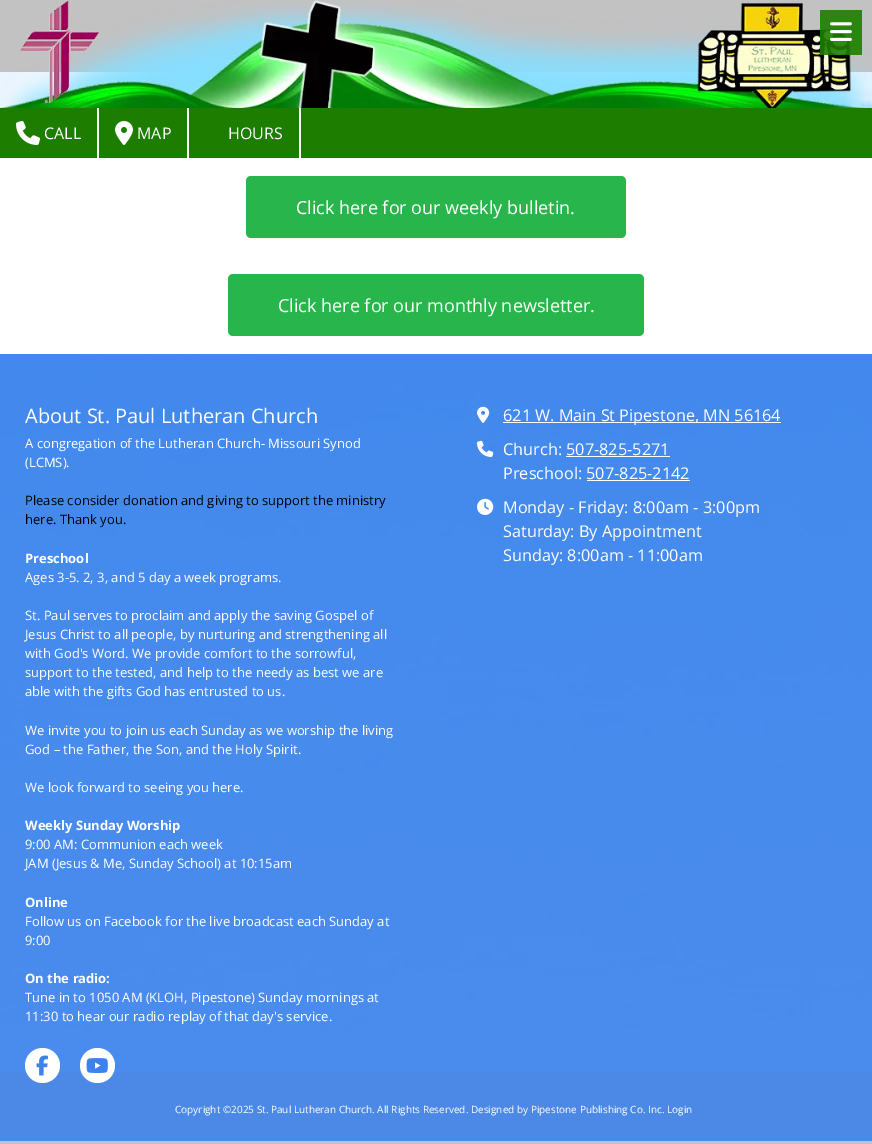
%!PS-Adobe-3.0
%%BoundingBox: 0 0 872 1144
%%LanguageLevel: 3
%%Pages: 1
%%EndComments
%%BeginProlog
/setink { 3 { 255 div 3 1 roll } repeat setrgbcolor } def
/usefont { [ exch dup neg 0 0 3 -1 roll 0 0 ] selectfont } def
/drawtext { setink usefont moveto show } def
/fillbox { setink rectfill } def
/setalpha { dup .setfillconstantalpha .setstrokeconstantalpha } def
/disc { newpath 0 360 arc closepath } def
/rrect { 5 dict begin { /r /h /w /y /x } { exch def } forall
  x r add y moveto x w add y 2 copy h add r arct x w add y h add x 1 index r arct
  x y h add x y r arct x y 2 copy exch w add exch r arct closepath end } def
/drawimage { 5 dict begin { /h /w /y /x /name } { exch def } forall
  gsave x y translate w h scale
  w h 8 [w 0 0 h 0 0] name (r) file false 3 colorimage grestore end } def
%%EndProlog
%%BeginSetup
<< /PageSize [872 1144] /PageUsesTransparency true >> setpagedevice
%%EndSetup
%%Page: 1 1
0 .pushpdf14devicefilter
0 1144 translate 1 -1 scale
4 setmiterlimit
0 0 872 1144 194 194 194 fillbox
(assets/img1.rgb) 0 72 872 1000 drawimage
(assets/img2.rgb) 0 0 872 108 drawimage
0.9 setalpha
820 10 42 45 29 125 0 fillbox
1 setalpha
(assets/img3.rgb) 830 22 22 19 drawimage
0 108 872 50 29 125 0 fillbox
97 108 2 50 255 255 255 fillbox
(assets/img4.rgb) 16 121 24 24 drawimage
(CALL) 44 139 /OpenSans-Regular 16 255 255 255 drawtext
187 108 2 50 255 255 255 fillbox
(assets/img5.rgb) 115 121 18 24 drawimage
(MAP) 137 139 /OpenSans-Regular 16 255 255 255 drawtext
299 108 2 50 255 255 255 fillbox
(HOURS) 228 139 /OpenSans-Regular 16 255 255 255 drawtext
0 158 872 196 255 255 255 fillbox
40 181 75 setink
246 176 380 62 5 rrect fill
(Click here for our weekly bulletin.) 296 214 /OpenSans-Regular 18 255 255 255 drawtext
40 181 75 setink
228 274 416 62 5 rrect fill
(Click here for our monthly newsletter.) 278 312 /OpenSans-Regular 18 255 255 255 drawtext
0.89 setalpha
0 354 872 787 61 130 235 fillbox
1 setalpha
(About St. Paul Lutheran Church) 25 423 /OpenSans-Regular 20 255 255 255 drawtext
(A congregation of the Lutheran Church- Missouri Synod) 25 448 /OpenSans-Regular 13 255 255 255 drawtext
(\(LCMS\).) 25 467 /OpenSans-Regular 13 255 255 255 drawtext
(Please consider donation and giving to support the ministry) 25 505 /OpenSans-Regular 13 0 0 0 drawtext
(here. Thank you.) 25 524 /OpenSans-Regular 13 0 0 0 drawtext
(Preschool) 25 563 /OpenSans-Bold 13 255 255 255 drawtext
(Ages 3-5. 2, 3, and 5 day a week programs.) 25 582 /OpenSans-Regular 13 255 255 255 drawtext
(St. Paul serves to proclaim and apply the saving Gospel of) 25 620 /OpenSans-Regular 13 255 255 255 drawtext
(Jesus Christ to all people, by nurturing and strengthening all) 25 639 /OpenSans-Regular 13 255 255 255 drawtext
(with God's Word. We provide comfort to the sorrowful,) 25 658 /OpenSans-Regular 13 255 255 255 drawtext
(support to the tested, and help to the needy as best we are) 25 677 /OpenSans-Regular 13 255 255 255 drawtext
(able with the gifts God has entrusted to us.) 25 696 /OpenSans-Regular 13 255 255 255 drawtext
(We invite you to join us each Sunday as we worship the living) 25 735 /OpenSans-Regular 13 255 255 255 drawtext
(God – the Father, the Son, and the Holy Spirit.) 25 754 /OpenSans-Regular 13 255 255 255 drawtext
(We look forward to seeing you here.) 25 792 /OpenSans-Regular 13 255 255 255 drawtext
(Weekly Sunday Worship) 25 830 /OpenSans-Bold 13 255 255 255 drawtext
(9:00 AM: Communion each week) 25 849 /OpenSans-Regular 13 255 255 255 drawtext
(JAM \(Jesus & Me, Sunday School\) at 10:15am) 25 868 /OpenSans-Regular 13 255 255 255 drawtext
(Online) 25 907 /OpenSans-Bold 13 255 255 255 drawtext
(Follow us on Facebook for the live broadcast each Sunday at) 25 926 /OpenSans-Regular 13 255 255 255 drawtext
(9:00) 25 945 /OpenSans-Regular 13 255 255 255 drawtext
(On the radio:) 25 983 /OpenSans-Bold 13 255 255 255 drawtext
(Tune in to 1050 AM \(KLOH, Pipestone\) Sunday mornings at) 25 1002 /OpenSans-Regular 13 255 255 255 drawtext
(11:30 to hear our radio replay of that day's service.) 25 1021 /OpenSans-Regular 13 255 255 255 drawtext
42.5 1065.5 17.5 disc fill
(assets/img6.rgb) 36 1055 12 21 drawimage
97.5 1065.5 17.5 disc fill
(assets/img7.rgb) 86 1058 22 15 drawimage
(assets/img8.rgb) 477 406 13 17 drawimage
503 422 278 1 255 255 255 fillbox
(621 W. Main St Pipestone, MN 56164) 503 421 /OpenSans-Regular 16.25 255 255 255 drawtext
(assets/img9.rgb) 477 440 17 17 drawimage
(Church: 507-825-5271) 503 455 /OpenSans-Regular 16.25 255 255 255 drawtext
566 456 104 1 255 255 255 fillbox
(Preschool: 507-825-2142) 503 479 /OpenSans-Regular 16.25 255 255 255 drawtext
587 480 103 1 255 255 255 fillbox
(assets/img10.rgb) 477 498 17 17 drawimage
(Monday - Friday: 8:00am - 3:00pm) 503 513 /OpenSans-Regular 16.25 255 255 255 drawtext
(Saturday: By Appointment) 503 537 /OpenSans-Regular 16.25 255 255 255 drawtext
(Sunday: 8:00am - 11:00am) 503 561 /OpenSans-Regular 16.25 255 255 255 drawtext
(Copyright ©2025 St. Paul Lutheran Church. All Rights Reserved. Designed by Pipestone Publishing Co. Inc. Login) 175 1113 /OpenSans-Regular 10 255 255 255 drawtext
.poppdf14devicefilter showpage
%%EOF
